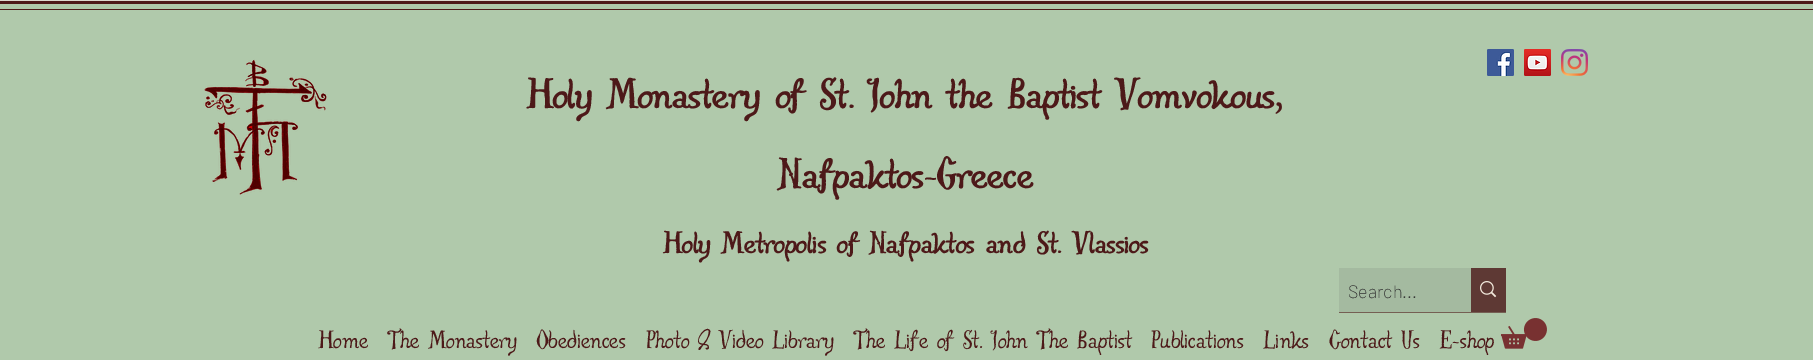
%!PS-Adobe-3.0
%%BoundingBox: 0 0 1813 360
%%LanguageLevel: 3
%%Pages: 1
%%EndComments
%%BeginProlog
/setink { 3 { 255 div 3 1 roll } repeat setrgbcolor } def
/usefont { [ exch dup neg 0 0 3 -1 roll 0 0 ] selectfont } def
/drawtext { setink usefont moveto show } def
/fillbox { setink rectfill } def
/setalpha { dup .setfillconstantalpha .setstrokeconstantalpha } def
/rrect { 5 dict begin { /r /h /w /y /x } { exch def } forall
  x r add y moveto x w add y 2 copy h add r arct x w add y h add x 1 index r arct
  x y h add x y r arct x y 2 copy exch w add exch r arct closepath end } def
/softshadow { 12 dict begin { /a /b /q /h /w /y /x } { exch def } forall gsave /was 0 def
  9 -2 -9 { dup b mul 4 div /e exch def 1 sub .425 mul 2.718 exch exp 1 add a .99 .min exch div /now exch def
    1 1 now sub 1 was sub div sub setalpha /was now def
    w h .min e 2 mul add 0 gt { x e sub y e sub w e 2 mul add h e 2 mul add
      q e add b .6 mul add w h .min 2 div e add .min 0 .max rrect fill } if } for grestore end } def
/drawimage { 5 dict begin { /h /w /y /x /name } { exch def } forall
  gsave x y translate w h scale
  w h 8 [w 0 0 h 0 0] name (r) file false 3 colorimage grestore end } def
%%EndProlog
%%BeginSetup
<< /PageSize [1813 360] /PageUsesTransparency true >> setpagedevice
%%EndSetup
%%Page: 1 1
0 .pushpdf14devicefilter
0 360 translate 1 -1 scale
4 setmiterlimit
0 0 1813 360 247 240 230 fillbox
0 0 0 setink
0 3 1813 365 0 2.5 0.7 softshadow
0 4 1813 356 176 201 171 fillbox
0 1 1813 3 77 25 25 fillbox
0 9 1813 1 77 25 25 fillbox
(assets/img1.rgb) 203 59 125 136 drawimage
(Holy Monastery of St. John the Baptist Vomvokous,) 528 108 /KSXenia-SemiBold 55 77 25 25 drawtext
(Nafpaktos-Greece) 779 188 /KSXenia-SemiBold 55 77 25 25 drawtext
(Holy Metropolis of Nafpaktos and St. Vlassios) 664 253 /KSXenia-SemiBold 40 77 25 25 drawtext
(assets/img2.rgb) 1487 49 27 27 drawimage
(assets/img3.rgb) 1524 49 27 27 drawimage
(assets/img4.rgb) 1561 49 27 27 drawimage
1339 312 167 1 117 95 83 fillbox
1339 268 132 44 164 186 160 fillbox
(Search...) 1348 298 /Barlow-ExtraLight 18 48 48 48 drawtext
1471 268 35 44 94 57 52 fillbox
(assets/img5.rgb) 1480 281 17 17 drawimage
(Home) 319 348 /KSXenia-Regular 32 77 25 25 drawtext
(The Monastery) 388 348 /KSXenia-Regular 32 77 25 25 drawtext
(Obediences) 537 348 /KSXenia-Regular 32 77 25 25 drawtext
(Photo & Video Library) 646 348 /KSXenia-Regular 32 77 25 25 drawtext
(The Life of St. John The Baptist) 854 348 /KSXenia-Regular 32 77 25 25 drawtext
(Publications) 1151 348 /KSXenia-Regular 32 77 25 25 drawtext
(Links) 1264 348 /KSXenia-Regular 32 77 25 25 drawtext
(Contact Us) 1329 348 /KSXenia-Regular 32 77 25 25 drawtext
(E-shop) 1440 348 /KSXenia-Regular 32 77 25 25 drawtext
(assets/img6.rgb) 1501 318 46 31 drawimage
.poppdf14devicefilter showpage
%%EOF
